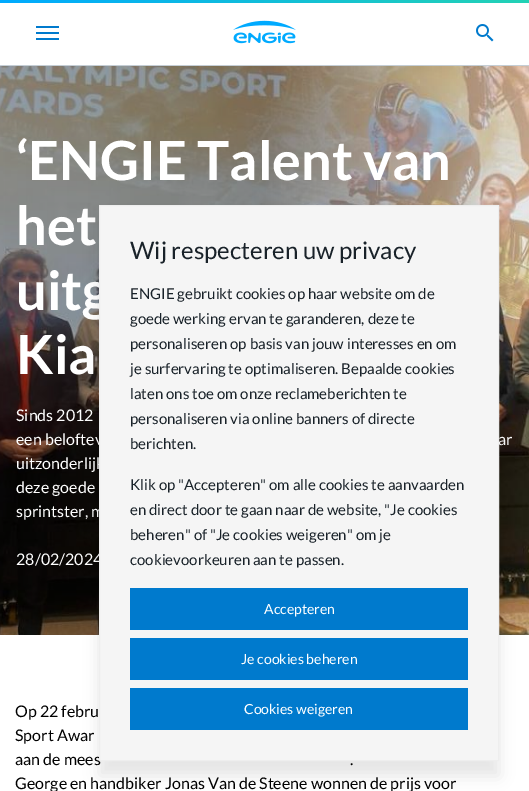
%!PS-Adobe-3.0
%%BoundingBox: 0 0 529 791
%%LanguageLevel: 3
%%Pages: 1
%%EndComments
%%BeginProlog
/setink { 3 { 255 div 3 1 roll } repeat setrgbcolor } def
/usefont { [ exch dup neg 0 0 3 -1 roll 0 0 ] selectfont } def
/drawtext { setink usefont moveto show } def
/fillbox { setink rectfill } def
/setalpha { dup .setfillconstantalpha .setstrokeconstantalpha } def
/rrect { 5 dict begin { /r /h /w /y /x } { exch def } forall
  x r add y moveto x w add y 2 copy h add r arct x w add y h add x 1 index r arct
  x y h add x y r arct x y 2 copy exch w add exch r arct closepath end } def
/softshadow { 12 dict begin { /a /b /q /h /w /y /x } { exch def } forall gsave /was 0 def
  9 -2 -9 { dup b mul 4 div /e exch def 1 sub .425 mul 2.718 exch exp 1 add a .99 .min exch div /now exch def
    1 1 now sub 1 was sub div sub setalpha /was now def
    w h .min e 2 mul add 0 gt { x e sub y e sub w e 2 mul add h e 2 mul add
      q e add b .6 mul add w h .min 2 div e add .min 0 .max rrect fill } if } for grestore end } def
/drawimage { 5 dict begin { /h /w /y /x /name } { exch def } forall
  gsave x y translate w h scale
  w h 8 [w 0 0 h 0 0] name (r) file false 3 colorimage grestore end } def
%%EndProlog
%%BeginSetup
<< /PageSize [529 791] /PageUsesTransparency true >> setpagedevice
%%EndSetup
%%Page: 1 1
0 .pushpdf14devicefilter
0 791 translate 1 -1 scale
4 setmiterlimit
0 0 529 791 255 255 255 fillbox
0 65 529 1 197 206 213 fillbox
gsave 0 0 moveto 529 0 lineto 529 3 lineto 0 3 lineto closepath clip newpath
<< /ShadingType 2 /ColorSpace /DeviceRGB /Coords [0 1.5 529 1.5] /Extend [true true] /Function << /FunctionType 2 /Domain [0 1] /C0 [0 0.667 1] /C1 [0.137 0.824 0.71] /N 1 >> >> shfill grestore
(assets/img1.rgb) 233 20 63 24 drawimage
36 26 23 2 0 122 205 fillbox
36 32 23 2 0 122 205 fillbox
36 38 23 2 0 122 205 fillbox
(assets/img2.rgb) 476 24 18 18 drawimage
(assets/img3.rgb) 0 66 529 569 drawimage
(‘ENGIE Talent van) 16 180 /Lato-Bold 54 255 255 255 drawtext
(het) 16 245 /Lato-Bold 54 255 255 255 drawtext
(uitg) 16 310 /Lato-Bold 54 255 255 255 drawtext
(Kia) 16 374 /Lato-Bold 54 255 255 255 drawtext
(Sinds 2012) 16 421 /Lato-Regular 16 255 255 255 drawtext
(een beloftev) 16 445 /Lato-Regular 16 255 255 255 drawtext
(ar) 498 445 /Lato-Regular 16 255 255 255 drawtext
(uitzonderlijk) 16 469 /Lato-Regular 16 255 255 255 drawtext
(deze goede) 16 493 /Lato-Regular 16 255 255 255 drawtext
(sprintster, m) 16 517 /Lato-Regular 16 255 255 255 drawtext
(28/02/2024) 16 565 /Lato-Regular 16 255 255 255 drawtext
(Op 22 febru) 15 717 /Lato-Regular 16 0 0 0 drawtext
(Sport Awar) 15 741 /Lato-Regular 16 0 0 0 drawtext
(aan de mees) 15 765 /Lato-Regular 16 0 0 0 drawtext
(.) 350 765 /Lato-Regular 16 0 0 0 drawtext
(George en handbiker Jonas Van de Steene wonnen de prijs voor) 15 789 /Lato-Regular 16 0 0 0 drawtext
99 220 400 556 0 7.5 0.1 softshadow
245 245 245 setink
99.5 205.5 moveto 498.5 205.5 lineto 498.5 760.5 lineto 99.5 760.5 lineto closepath gsave fill grestore
238 238 238 setink
stroke
(Wij respecteren uw privacy) 130 259 /Lato-Regular 24 25 34 41 drawtext
(ENGIE gebruikt cookies op haar website om de) 130 299 /Lato-Regular 15 25 34 41 drawtext
(goede werking ervan te garanderen, deze te) 130 324 /Lato-Regular 15 25 34 41 drawtext
(personaliseren op basis van jouw interesses en om) 130 349 /Lato-Regular 15 25 34 41 drawtext
(je surfervaring te optimaliseren. Bepaalde cookies) 130 374 /Lato-Regular 15 25 34 41 drawtext
(laten ons toe om onze reclameberichten te) 130 399 /Lato-Regular 15 25 34 41 drawtext
(personaliseren via online banners of directe) 130 424 /Lato-Regular 15 25 34 41 drawtext
(berichten.) 130 449 /Lato-Regular 15 25 34 41 drawtext
(Klik op "Accepteren" om alle cookies te aanvaarden) 130 490 /Lato-Regular 15 25 34 41 drawtext
(en direct door te gaan naar de website, "Je cookies) 130 515 /Lato-Regular 15 25 34 41 drawtext
(beheren" of "Je cookies weigeren" om je) 130 540 /Lato-Regular 15 25 34 41 drawtext
(cookievoorkeuren aan te passen.) 130 565 /Lato-Regular 15 25 34 41 drawtext
130 588 338 42 0 122 205 fillbox
(Accepteren) 264 614 /Lato-Regular 14 255 255 255 drawtext
130 638 338 42 0 122 205 fillbox
(Je cookies beheren) 241 664 /Lato-Regular 14 255 255 255 drawtext
130 688 338 42 0 122 205 fillbox
(Cookies weigeren) 244 714 /Lato-Regular 14 255 255 255 drawtext
.poppdf14devicefilter showpage
%%EOF
